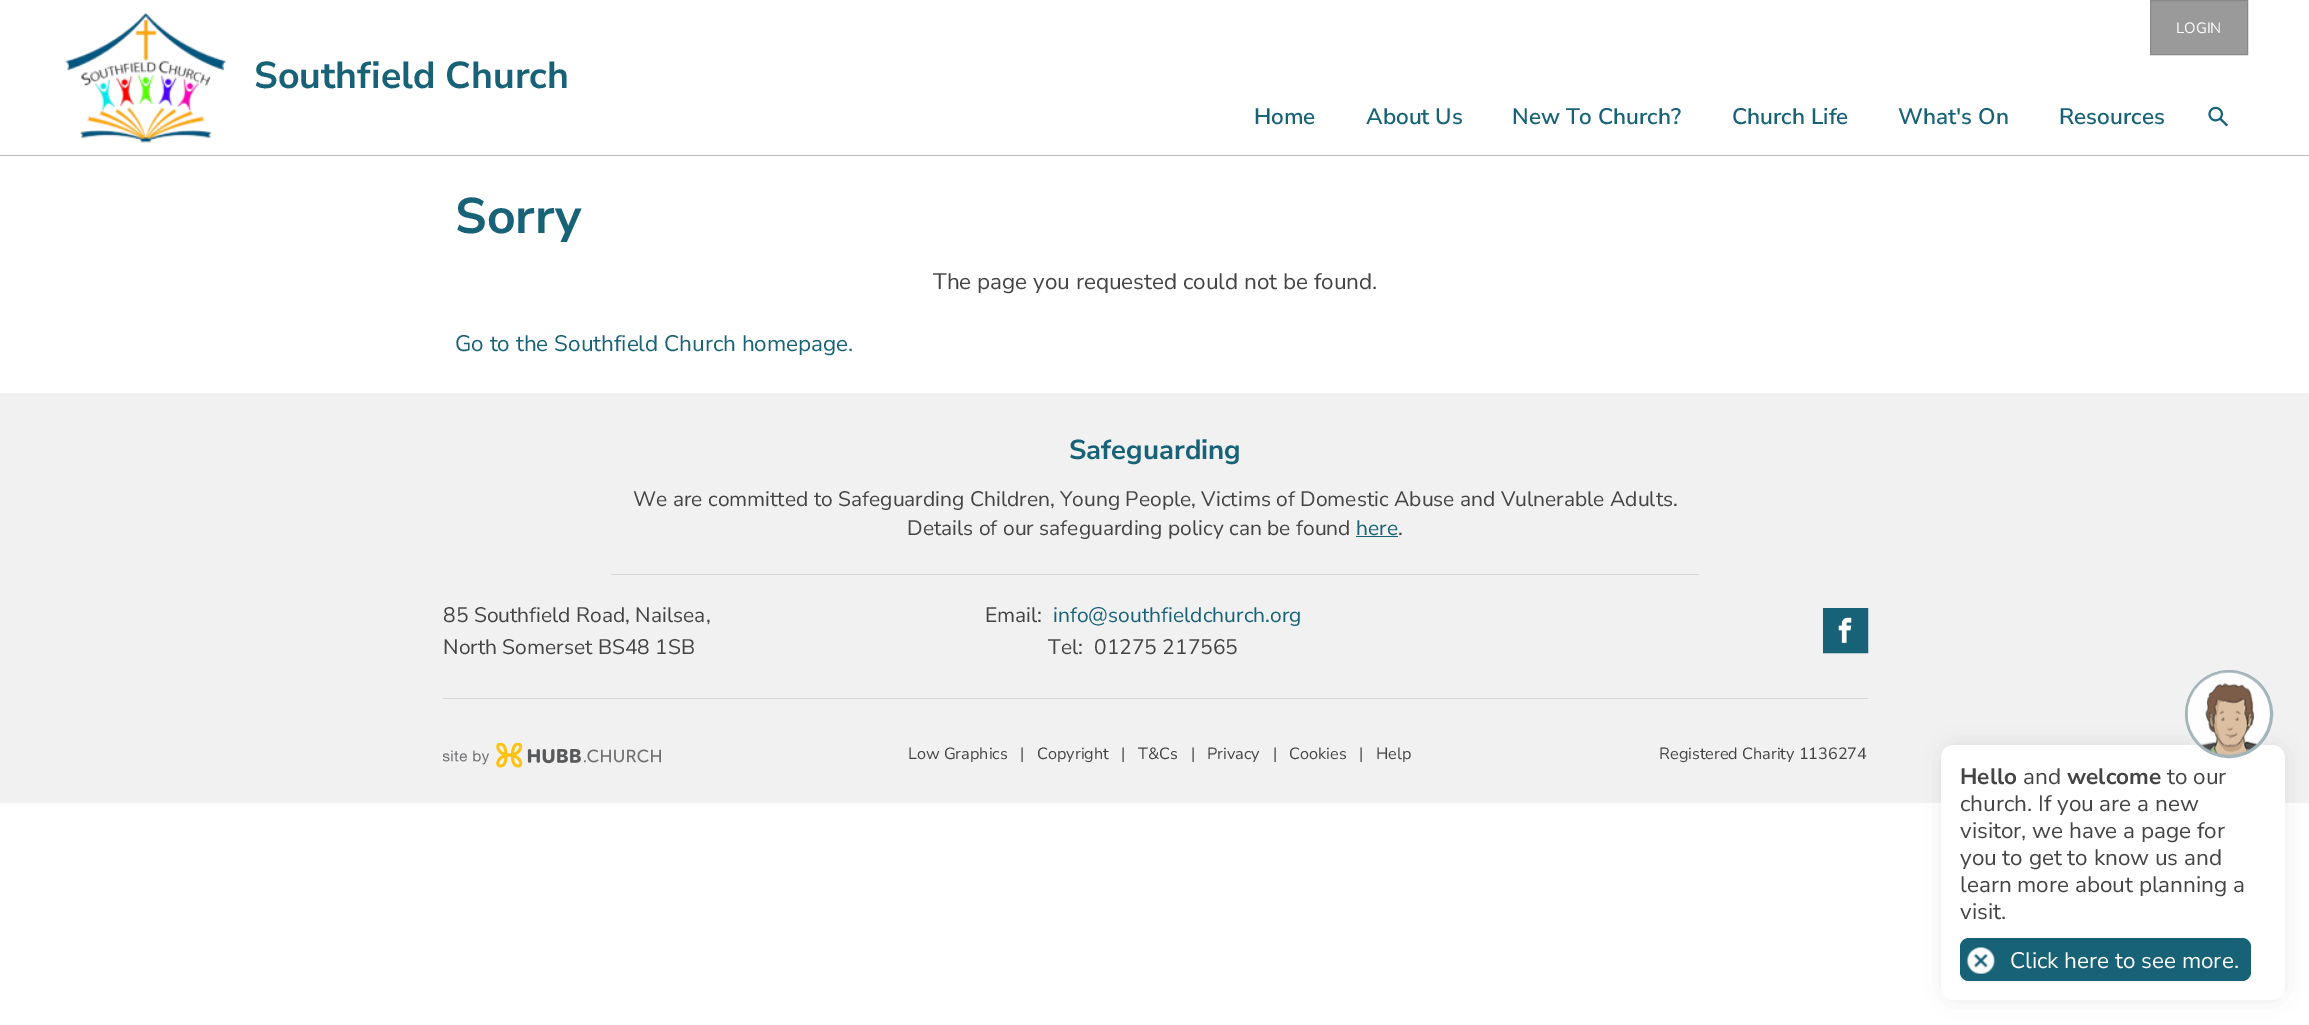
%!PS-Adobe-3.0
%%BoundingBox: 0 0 2309 1025
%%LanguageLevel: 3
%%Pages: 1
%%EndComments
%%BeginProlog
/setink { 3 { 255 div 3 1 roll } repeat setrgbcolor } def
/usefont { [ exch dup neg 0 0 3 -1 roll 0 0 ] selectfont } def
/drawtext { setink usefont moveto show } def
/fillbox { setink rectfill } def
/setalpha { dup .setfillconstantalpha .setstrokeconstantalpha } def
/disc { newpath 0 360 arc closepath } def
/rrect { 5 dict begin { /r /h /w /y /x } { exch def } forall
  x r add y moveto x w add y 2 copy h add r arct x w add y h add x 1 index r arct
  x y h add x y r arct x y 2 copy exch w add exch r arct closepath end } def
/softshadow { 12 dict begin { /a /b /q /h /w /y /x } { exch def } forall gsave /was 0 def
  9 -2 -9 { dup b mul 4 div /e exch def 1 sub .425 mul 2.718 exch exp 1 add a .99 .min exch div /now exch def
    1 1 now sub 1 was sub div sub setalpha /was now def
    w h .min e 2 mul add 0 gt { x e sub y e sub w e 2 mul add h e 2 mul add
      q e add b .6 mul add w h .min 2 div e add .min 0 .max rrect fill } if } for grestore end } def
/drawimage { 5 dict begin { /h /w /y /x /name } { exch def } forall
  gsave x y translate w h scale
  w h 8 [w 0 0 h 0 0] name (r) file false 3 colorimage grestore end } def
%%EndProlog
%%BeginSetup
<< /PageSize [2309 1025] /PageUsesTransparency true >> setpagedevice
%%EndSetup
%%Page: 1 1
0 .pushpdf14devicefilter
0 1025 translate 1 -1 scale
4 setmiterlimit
0 0 2309 1025 255 255 255 fillbox
0 155 2309 1 187 187 187 fillbox
154 154 154 setink
2150.5 0.5 moveto 2247.5 0.5 lineto 2247.5 54.5 lineto 2150.5 54.5 lineto closepath gsave fill grestore
136 136 136 setink
stroke
(LOGIN) 2176 33 /NunitoSans-Regular 15 255 255 255 drawtext
(assets/img1.rgb) 65 12 162 131 drawimage
(Southfield Church) 254 88 /NunitoSans-Bold 37.5 23 98 118 drawtext
(Home) 1254 124 /NunitoSans-SemiBold 22.5 23 98 118 drawtext
(About Us) 1366 124 /NunitoSans-SemiBold 22.5 23 98 118 drawtext
(New To Church?) 1512 124 /NunitoSans-SemiBold 22.5 23 98 118 drawtext
(Church Life) 1732 124 /NunitoSans-SemiBold 22.5 23 98 118 drawtext
(What's On) 1898 124 /NunitoSans-SemiBold 22.5 23 98 118 drawtext
(Resources) 2059 124 /NunitoSans-SemiBold 22.5 23 98 118 drawtext
(assets/img2.rgb) 2208 106 20 21 drawimage
(Sorry) 455 233 /NunitoSans-Bold 50 23 98 118 drawtext
(The page you requested could not be found.) 933 289 /NunitoSans-Regular 22.5 68 68 68 drawtext
(Go to the Southfield Church homepage.) 455 351 /NunitoSans-Regular 22.5 23 98 118 drawtext
0 393 2309 410 241 241 241 fillbox
611 574 1088 1 215 215 215 fillbox
(Safeguarding) 1069 459 /NunitoSans-Bold 27.5 23 98 118 drawtext
(We are committed to Safeguarding Children, Young People, Victims of Domestic Abuse and Vulnerable Adults.) 633 506 /NunitoSans-Regular 21 68 68 68 drawtext
(Details of our safeguarding policy can be found) 907 535 /NunitoSans-Regular 21 68 68 68 drawtext
(here) 1356 535 /NunitoSans-Regular 21 23 98 118 drawtext
1356 536 42 1 23 98 118 fillbox
(.) 1398 535 /NunitoSans-Regular 21 68 68 68 drawtext
(85 Southfield Road, Nailsea,) 443 622 /NunitoSans-Regular 21 68 68 68 drawtext
(North Somerset BS48 1SB) 443 654 /NunitoSans-Regular 21 68 68 68 drawtext
(Email:) 985 622 /NunitoSans-Regular 21 68 68 68 drawtext
(info@southfieldchurch.org) 1053 622 /NunitoSans-Regular 21 23 98 118 drawtext
(Tel:) 1048 654 /NunitoSans-Regular 21 68 68 68 drawtext
(01275 217565) 1094 654 /NunitoSans-Regular 21 68 68 68 drawtext
23 98 118 setink
1828 613 moveto 1863 613 lineto 1863 648 lineto 1828 648 lineto closepath gsave fill grestore
10 setlinewidth
stroke
(assets/img3.rgb) 1838 617 14 26 drawimage
443 698 1425 1 215 215 215 fillbox
(assets/img4.rgb) 443 743 218 25 drawimage
(Low Graphics) 908 759 /NunitoSans-Regular 16.25 68 68 68 drawtext
(|) 1020 759 /NunitoSans-Regular 16.25 68 68 68 drawtext
(Copyright) 1037 759 /NunitoSans-Regular 16.25 68 68 68 drawtext
(|) 1121 759 /NunitoSans-Regular 16.25 68 68 68 drawtext
(T&Cs) 1138 759 /NunitoSans-Regular 16.25 68 68 68 drawtext
(|) 1191 759 /NunitoSans-Regular 16.25 68 68 68 drawtext
(Privacy) 1207 759 /NunitoSans-Regular 16.25 68 68 68 drawtext
(|) 1273 759 /NunitoSans-Regular 16.25 68 68 68 drawtext
(Cookies) 1289 759 /NunitoSans-Regular 16.25 68 68 68 drawtext
(|) 1359 759 /NunitoSans-Regular 16.25 68 68 68 drawtext
(Help) 1376 759 /NunitoSans-Regular 16.25 68 68 68 drawtext
(Registered Charity 1136274) 1659 759 /NunitoSans-Regular 16.25 68 68 68 drawtext
0 0 0 setink
1948 751 331 243 6 12.5 0.12 softshadow
255 255 255 setink
1941 745 344 255 13 rrect fill
163 180 186 setink
2229 714 42.5 disc gsave fill grestore
3 setlinewidth
stroke
(assets/img5.rgb) 2187 672 83 83 drawimage
(Hello) 1960 784 /NunitoSans-Bold 22.5 68 68 68 drawtext
(and) 2023 784 /NunitoSans-Regular 22.5 68 68 68 drawtext
(welcome) 2067 784 /NunitoSans-Bold 22.5 68 68 68 drawtext
(to our) 2167 784 /NunitoSans-Regular 22.5 68 68 68 drawtext
(church. If you are a new) 1960 811 /NunitoSans-Regular 22.5 68 68 68 drawtext
(visitor, we have a page for) 1960 838 /NunitoSans-Regular 22.5 68 68 68 drawtext
(you to get to know us and) 1960 865 /NunitoSans-Regular 22.5 68 68 68 drawtext
(learn more about planning a) 1960 892 /NunitoSans-Regular 22.5 68 68 68 drawtext
(visit.) 1960 919 /NunitoSans-Regular 22.5 68 68 68 drawtext
23 98 118 setink
1960 938 291 43 9 rrect fill
(Click here to see more.) 2010 968 /NunitoSans-Regular 22.5 255 255 255 drawtext
(assets/img6.rgb) 1967 947 28 27 drawimage
.poppdf14devicefilter showpage
%%EOF
